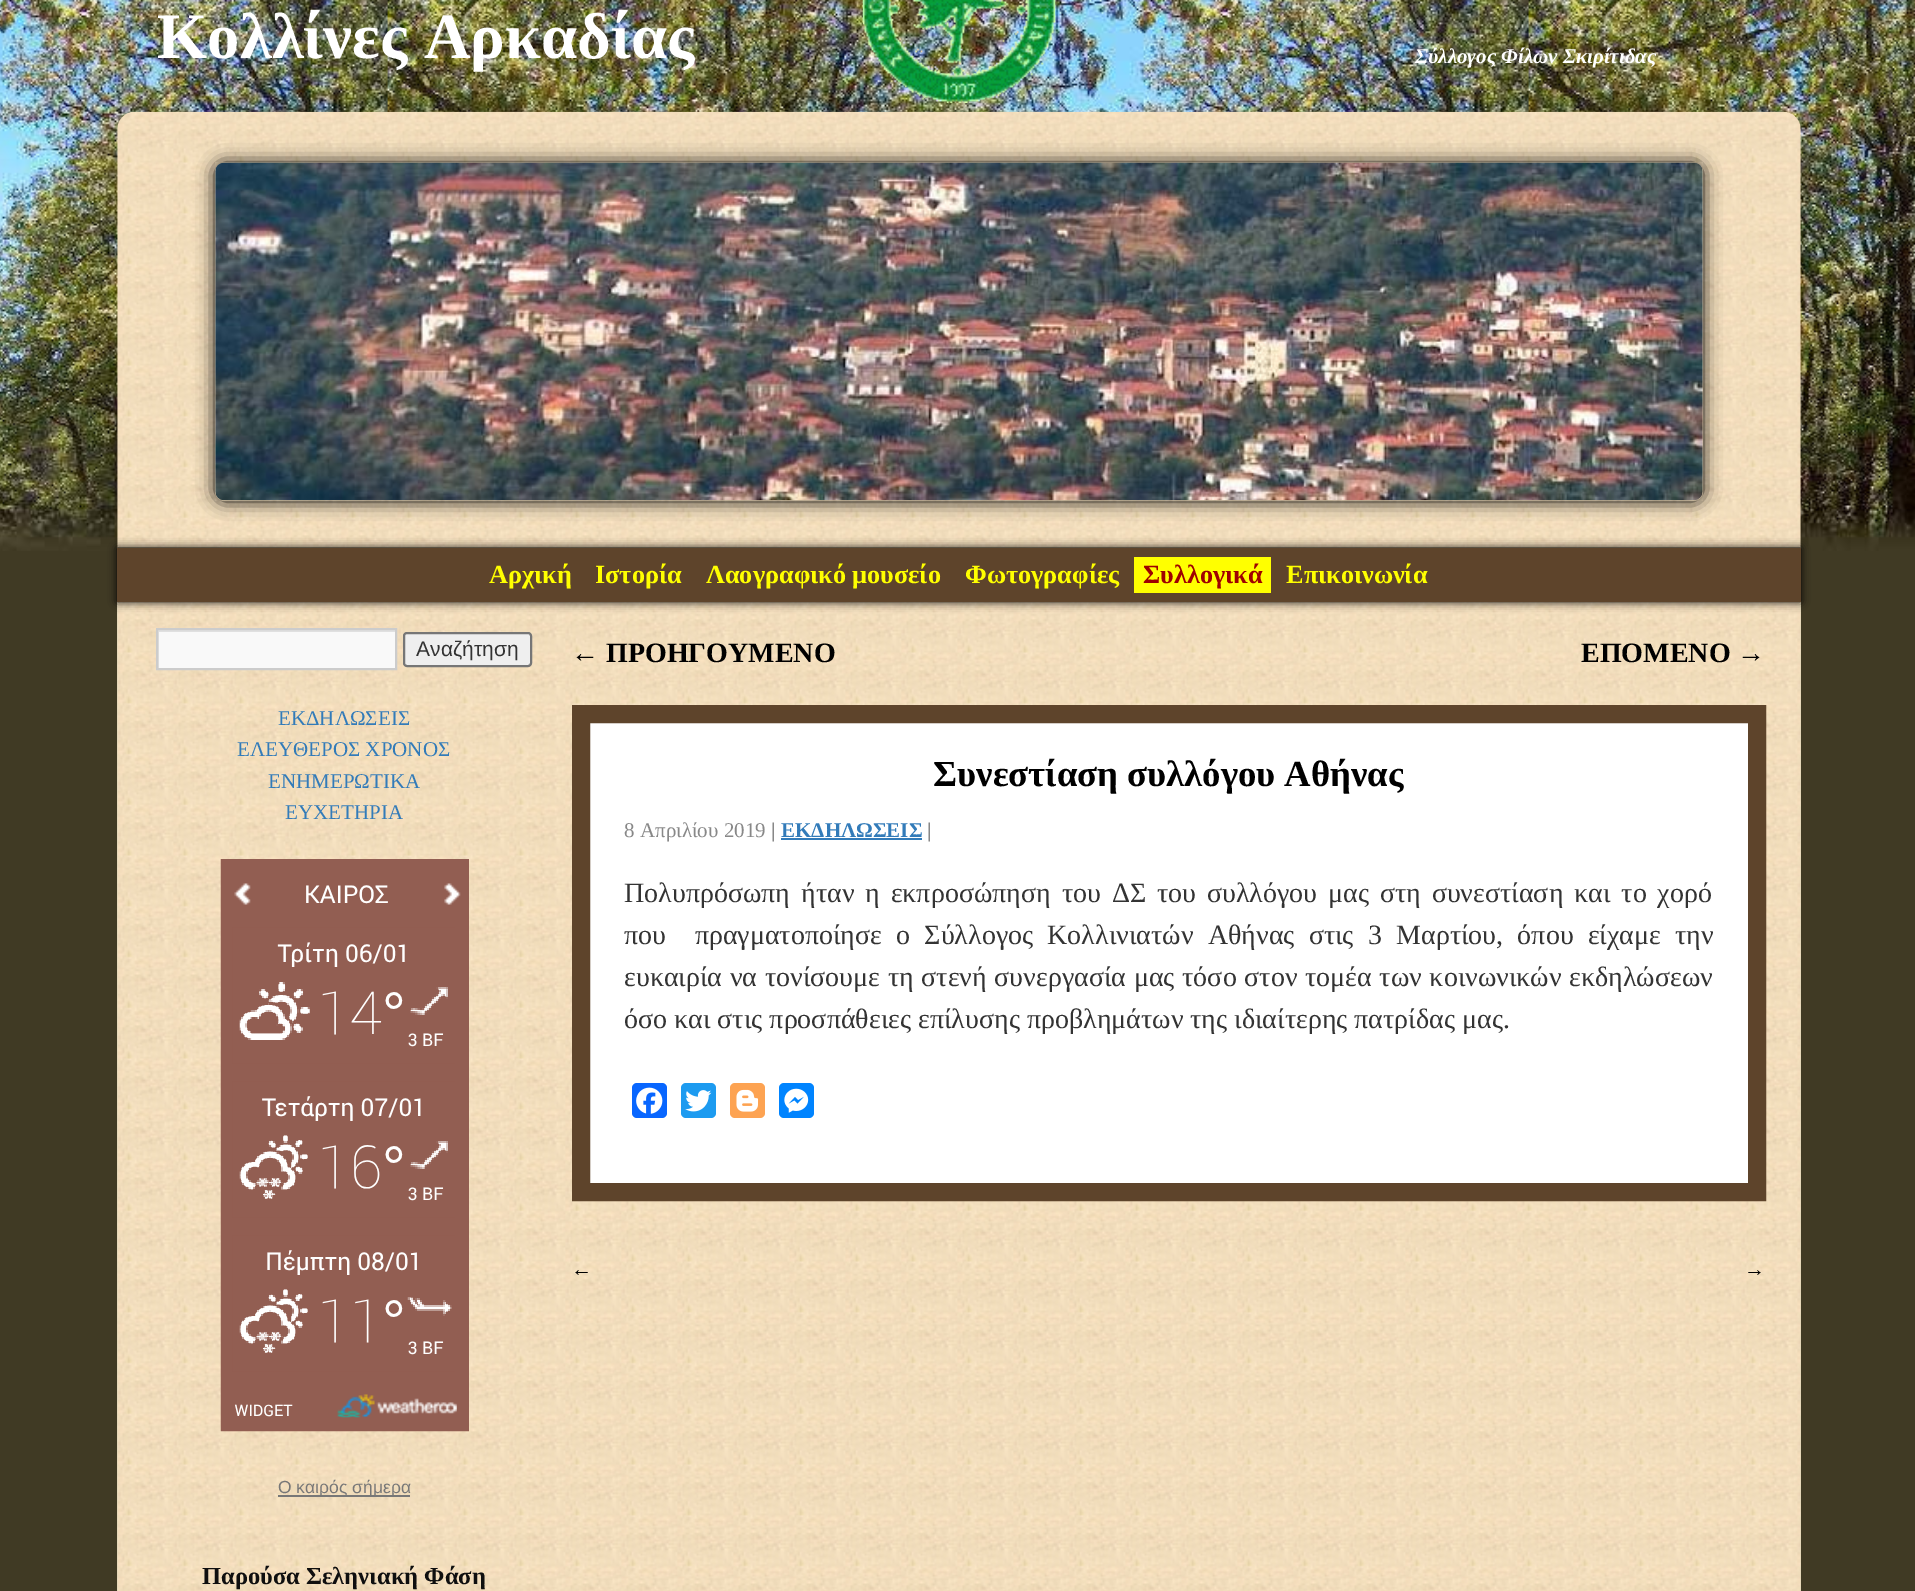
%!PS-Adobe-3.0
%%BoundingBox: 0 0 1915 1591
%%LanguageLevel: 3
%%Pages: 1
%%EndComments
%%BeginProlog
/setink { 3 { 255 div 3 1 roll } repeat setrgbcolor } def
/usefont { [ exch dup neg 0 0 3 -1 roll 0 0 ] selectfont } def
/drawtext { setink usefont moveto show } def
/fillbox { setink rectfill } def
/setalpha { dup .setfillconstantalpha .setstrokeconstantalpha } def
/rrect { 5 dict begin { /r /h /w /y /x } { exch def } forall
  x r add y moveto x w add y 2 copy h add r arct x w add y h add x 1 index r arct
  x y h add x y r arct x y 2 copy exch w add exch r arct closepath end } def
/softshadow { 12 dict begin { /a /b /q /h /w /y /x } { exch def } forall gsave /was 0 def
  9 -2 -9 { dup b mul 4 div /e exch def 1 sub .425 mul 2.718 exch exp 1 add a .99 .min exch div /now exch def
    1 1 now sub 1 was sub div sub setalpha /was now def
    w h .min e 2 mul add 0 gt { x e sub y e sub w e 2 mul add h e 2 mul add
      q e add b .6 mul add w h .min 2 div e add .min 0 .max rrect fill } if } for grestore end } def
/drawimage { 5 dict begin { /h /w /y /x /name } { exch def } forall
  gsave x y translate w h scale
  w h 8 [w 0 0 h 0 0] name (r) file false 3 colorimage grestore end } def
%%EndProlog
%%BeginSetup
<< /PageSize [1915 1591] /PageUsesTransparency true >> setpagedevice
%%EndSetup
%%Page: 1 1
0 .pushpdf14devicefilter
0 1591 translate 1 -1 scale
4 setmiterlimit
0 0 1915 1591 64 58 36 fillbox
(assets/img1.rgb) 0 0 1915 551 drawimage
(Κολλίνες Αρκαδίας) 157 58 /LiberationSerif-Bold 64.75 255 255 255 drawtext
(assets/img2.rgb) 862 0 194 103 drawimage
(Σύλλογος Φίλων Σκιρίτιδας) 1415 63 /LiberationSerif-BoldItalic 21 255 255 255 drawtext
(assets/img3.rgb) 117 111 1684 437 drawimage
0 0 0 setink
215 163 1488 338 9 9 1 softshadow
(assets/img4.rgb) 215 162 1488 339 drawimage
(assets/img5.rgb) 117 547 1684 1 drawimage
117 602 1684 989 214 209 182 fillbox
(assets/img6.rgb) 117 602 1684 989 drawimage
0 0 0 setink
117 548 1684 54 0 4.5 1 softshadow
117 548 1684 54 94 68 43 fillbox
(Αρχική) 489 583 /LiberationSerif-Bold 26.25 255 255 0 drawtext
(Ιστορία) 595 583 /LiberationSerif-Bold 26.25 255 255 0 drawtext
(Λαογραφικό μουσείο) 706 583 /LiberationSerif-Bold 26.25 255 255 0 drawtext
(Φωτογραφίες) 965 583 /LiberationSerif-Bold 26.25 255 255 0 drawtext
1134 557 137 36 255 255 0 fillbox
(Συλλογικά) 1143 583 /LiberationSerif-Bold 26.25 159 0 0 drawtext
(Επικοινωνία) 1286 583 /LiberationSerif-Bold 26.25 255 255 0 drawtext
159 632 236 36 249 249 249 fillbox
gsave
158 630 238 39 rectclip
224 224 224 setink
117 602 moveto 569 602 lineto 569 842 lineto 117 842 lineto closepath 159 632 moveto 159 670 lineto 397 670 lineto 397 632 lineto closepath eofill
grestore
204 204 204 setink
2 setlinewidth
157 629 239 40 rectstroke
239 239 239 setink
404 633 127 33 3 rrect gsave fill grestore
118 118 118 setink
stroke
(Αναζήτηση) 416 656 /LiberationSans-Regular 21 51 51 51 drawtext
(ΕΚΔΗΛΩΣΕΙΣ) 278 725 /LiberationSerif-Regular 21 50 123 185 drawtext
(ΕΛΕΥΘΕΡΟΣ ΧΡΟΝΟΣ) 237 756 /LiberationSerif-Regular 21 50 123 185 drawtext
(ΕΝΗΜΕΡΩΤΙΚΑ) 268 788 /LiberationSerif-Regular 21 50 123 185 drawtext
(ΕΥΧΕΤΗΡΙΑ) 285 819 /LiberationSerif-Regular 21 50 123 185 drawtext
(assets/img7.rgb) 220 859 249 573 drawimage
278 1495 132 2 119 119 119 fillbox
(O καιρός σήμερα) 278 1493 /LiberationSans-Regular 17.5 119 119 119 drawtext
(← ΠΡΟΗΓΟΥΜΕΝΟ) 571 662 /LiberationSerif-Bold 28 0 0 0 drawtext
(ΕΠΟΜΕΝΟ →) 1581 662 /LiberationSerif-Bold 28 0 0 0 drawtext
255 255 255 setink
581 714 moveto 1757 714 lineto 1757 1192 lineto 581 1192 lineto closepath gsave fill grestore
94 68 43 setink
18 setlinewidth
stroke
(Συνεστίαση συλλόγου Αθήνας) 933 786 /LiberationSerif-Bold 36.75 0 0 0 drawtext
(8 Απριλίου 2019) 624 837 /LiberationSerif-Regular 21 136 136 136 drawtext
(|) 771 837 /LiberationSerif-Bold 21 136 136 136 drawtext
(ΕΚΔΗΛΩΣΕΙΣ) 781 837 /LiberationSerif-Bold 21 50 123 185 drawtext
781 838 141 2 50 123 185 fillbox
(|) 927 837 /LiberationSerif-Bold 21 136 136 136 drawtext
/LiberationSerif-Regular 28 usefont
51 51 51 setink
624 902 moveto 3.9 0 32 (Πολυπρόσωπη ήταν η εκπροσώπηση του ΔΣ του συλλόγου μας στη συνεστίαση και το χορό) widthshow
624 944 moveto 7.25 0 32 (που  πραγματοποίησε ο Σύλλογος Κολλινιατών Αθήνας στις 3 Μαρτίου, όπου είχαμε την) widthshow
624 986 moveto 0.7 0 32 (ευκαιρία να τονίσουμε τη στενή συνεργασία μας τόσο στον τομέα των κοινωνικών εκδηλώσεων) widthshow
(όσο και στις προσπάθειες επίλυσης προβλημάτων της ιδιαίτερης πατρίδας μας.) 624 1028 /LiberationSerif-Regular 28 51 51 51 drawtext
8 102 255 setink
632 1083 35 35 5 rrect fill
(assets/img8.rgb) 636 1087 27 27 drawimage
29 155 240 setink
681 1083 35 35 5 rrect fill
(assets/img9.rgb) 685 1090 27 22 drawimage
253 163 82 setink
730 1083 35 35 5 rrect fill
(assets/img10.rgb) 736 1089 23 23 drawimage
0 132 255 setink
779 1083 35 35 5 rrect fill
(assets/img11.rgb) 784 1088 25 25 drawimage
(←) 571 1276 /LiberationSerif-Bold 21 0 0 0 drawtext
(→) 1744 1276 /LiberationSerif-Bold 21 0 0 0 drawtext
(Παρούσα Σεληνιακή Φάση) 202 1584 /LiberationSerif-Bold 24.5 15 15 15 drawtext
.poppdf14devicefilter showpage
%%EOF
